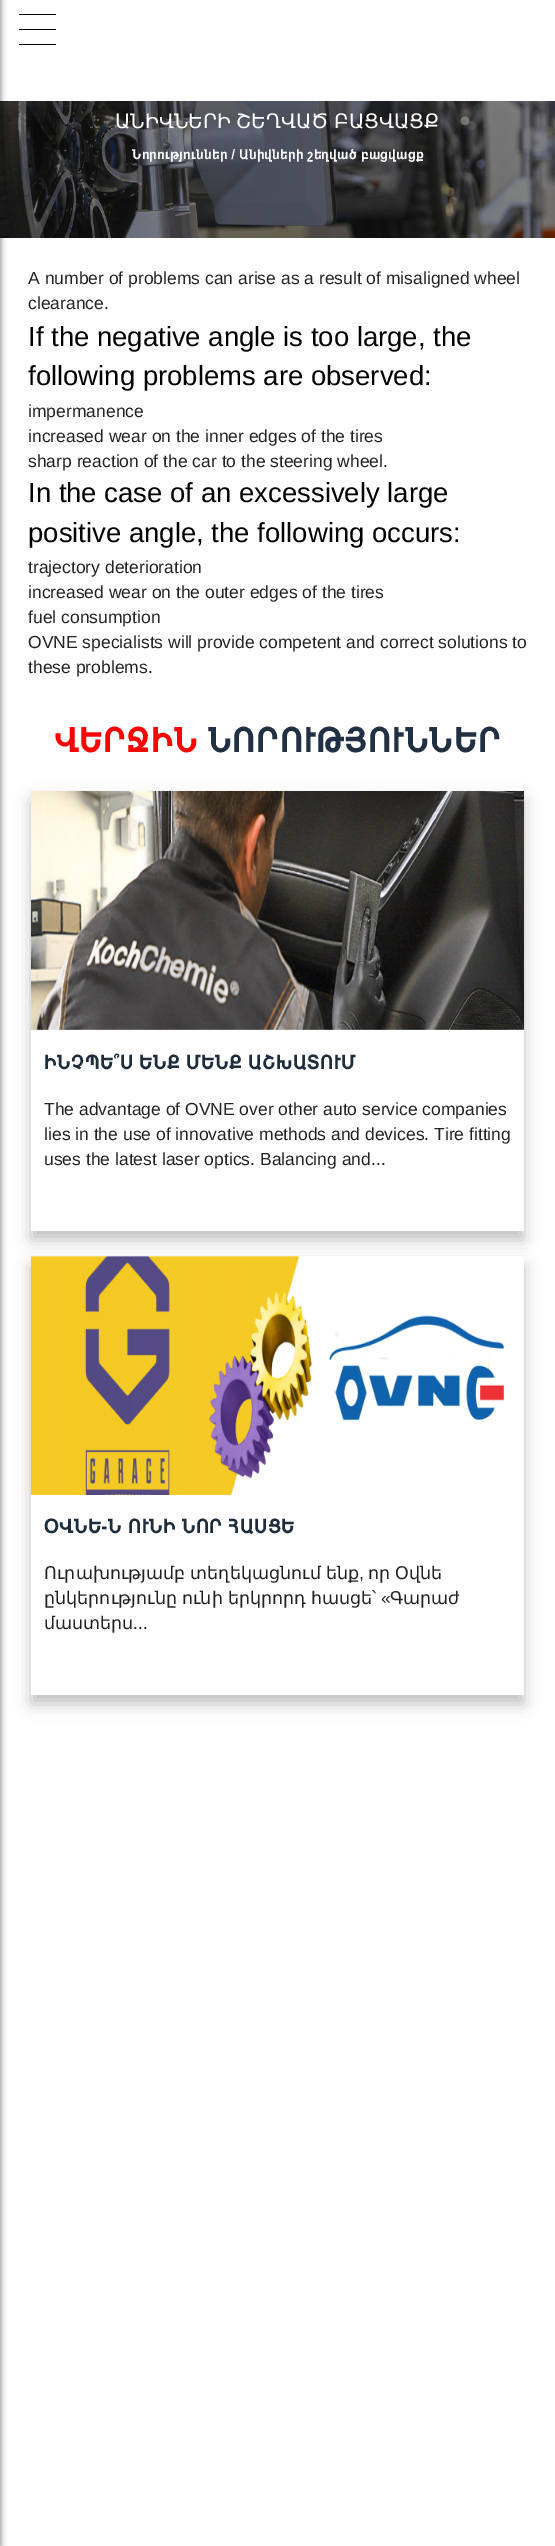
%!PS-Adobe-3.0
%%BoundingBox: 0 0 555 2546
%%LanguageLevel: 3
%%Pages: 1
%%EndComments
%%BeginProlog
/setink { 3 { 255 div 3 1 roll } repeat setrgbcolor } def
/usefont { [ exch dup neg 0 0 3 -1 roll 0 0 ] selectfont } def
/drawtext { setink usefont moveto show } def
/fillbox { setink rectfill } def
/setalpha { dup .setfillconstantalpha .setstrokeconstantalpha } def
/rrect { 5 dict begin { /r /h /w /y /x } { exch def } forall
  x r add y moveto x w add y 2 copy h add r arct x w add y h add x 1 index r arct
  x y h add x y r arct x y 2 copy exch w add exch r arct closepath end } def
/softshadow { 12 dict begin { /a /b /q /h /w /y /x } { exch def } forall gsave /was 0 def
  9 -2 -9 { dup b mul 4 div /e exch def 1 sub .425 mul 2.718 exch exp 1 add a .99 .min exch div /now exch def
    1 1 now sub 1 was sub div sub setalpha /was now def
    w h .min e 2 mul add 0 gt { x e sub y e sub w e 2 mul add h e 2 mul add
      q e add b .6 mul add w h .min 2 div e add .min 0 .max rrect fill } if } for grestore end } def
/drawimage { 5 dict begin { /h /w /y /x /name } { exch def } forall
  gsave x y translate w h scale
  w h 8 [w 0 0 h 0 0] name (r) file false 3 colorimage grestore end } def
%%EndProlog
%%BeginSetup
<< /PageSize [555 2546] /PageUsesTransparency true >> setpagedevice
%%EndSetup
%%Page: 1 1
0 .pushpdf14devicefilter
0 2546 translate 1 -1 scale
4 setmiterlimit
0 0 555 2546 255 255 255 fillbox
(assets/img1.rgb) 0 101 555 137 drawimage
110 109 117 setink
0 8 555 101 0 9 0.16 softshadow
0 0 555 101 255 255 255 fillbox
0 0 0 setink
19 14 37 1 0.5 rrect fill
19 29 37 1 0.5 rrect fill
19 44 37 1 0.5 rrect fill
22 22 22 setink
-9 0 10 2546 0 3 0.5 softshadow
/DejaVuSans-Regular 20 usefont
255 255 255 setink
115 128 moveto -1 0 32 (ԱՆԻՎՆԵՐԻ ՇԵՂՎԱԾ ԲԱՑՎԱՑՔ) widthshow
(Նորություններ / Անիվների շեղված բացվացք) 132 159 /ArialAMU-Bold 13.75 255 255 255 drawtext
(A number of problems can arise as a result of misaligned wheel) 28 284 /LiberationSans-Regular 17.5 34 34 34 drawtext
(clearance.) 28 309 /LiberationSans-Regular 17.5 34 34 34 drawtext
(If the negative angle is too large, the) 28 346 /LiberationSans-Regular 27.5 0 0 0 drawtext
(following problems are observed:) 28 385 /LiberationSans-Regular 27.5 0 0 0 drawtext
(impermanence) 28 417 /LiberationSans-Regular 17.5 34 34 34 drawtext
(increased wear on the inner edges of the tires) 28 442 /LiberationSans-Regular 17.5 34 34 34 drawtext
(sharp reaction of the car to the steering wheel.) 28 467 /LiberationSans-Regular 17.5 34 34 34 drawtext
(In the case of an excessively large) 28 502 /LiberationSans-Regular 27.5 0 0 0 drawtext
(positive angle, the following occurs:) 28 542 /LiberationSans-Regular 27.5 0 0 0 drawtext
(trajectory deterioration) 28 573 /LiberationSans-Regular 17.5 34 34 34 drawtext
(increased wear on the outer edges of the tires) 28 598 /LiberationSans-Regular 17.5 34 34 34 drawtext
(fuel consumption) 28 623 /LiberationSans-Regular 17.5 34 34 34 drawtext
(OVNE specialists will provide competent and correct solutions to) 28 648 /LiberationSans-Regular 17.5 34 34 34 drawtext
(these problems.) 28 673 /LiberationSans-Regular 17.5 34 34 34 drawtext
(ՎԵՐՋԻՆ) 54 752 /ArialAMU-Bold 35 255 3 3 drawtext
(ՆՈՐՈՒԹՅՈՒՆՆԵՐ) 208 752 /ArialAMU-Bold 35 34 48 67 drawtext
gsave
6 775 moveto 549 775 lineto 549 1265 lineto 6 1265 lineto closepath 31 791 moveto 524 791 lineto 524 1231 lineto 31 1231 lineto closepath eoclip newpath
192 192 192 setink
31 800 493 440 0 8 1 softshadow
grestore
(assets/img2.rgb) 31 791 493 239 drawimage
(ԻՆՉՊԵ՞Ս ԵՆՔ ՄԵՆՔ ԱՇԽԱՏՈՒՄ) 44 1069 /ArialAMU-Bold 20 29 45 61 drawtext
(The advantage of OVNE over other auto service companies) 44 1115 /LiberationSans-Regular 17.5 34 34 34 drawtext
(lies in the use of innovative methods and devices. Tire fitting) 44 1140 /LiberationSans-Regular 17.5 34 34 34 drawtext
(uses the latest laser optics. Balancing and...) 44 1165 /LiberationSans-Regular 17.5 34 34 34 drawtext
gsave
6 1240 moveto 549 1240 lineto 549 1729 lineto 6 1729 lineto closepath 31 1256 moveto 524 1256 lineto 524 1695 lineto 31 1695 lineto closepath eoclip newpath
192 192 192 setink
31 1265 493 439 0 8 1 softshadow
grestore
(assets/img3.rgb) 31 1256 493 239 drawimage
(ՕՎՆԵ-Ն ՈՒՆԻ ՆՈՐ ՀԱՍՑԵ) 44 1533 /ArialAMU-Bold 20 29 45 61 drawtext
/DejaVuSans-Regular 17.5 usefont
34 34 34 setink
44 1579 moveto -0.5 0 32 (Ուրախությամբ տեղեկացնում ենք) widthshow
(,) 359 1579 /LiberationSans-Regular 17.5 34 34 34 drawtext
/DejaVuSans-Regular 17.5 usefont
368 1579 moveto -0.5 0 32 (որ Օվնե) widthshow
44 1604 moveto -0.5 0 32 (ընկերությունը ունի երկրորդ հասցե՝) widthshow
(«) 381 1604 /LiberationSans-Regular 17.5 34 34 34 drawtext
(Գարաժ) 390 1604 /DejaVuSans-Regular 17.5 34 34 34 drawtext
(մաստերս) 44 1629 /DejaVuSans-Regular 17.5 34 34 34 drawtext
(...) 133 1629 /LiberationSans-Regular 17.5 34 34 34 drawtext
.poppdf14devicefilter showpage
%%EOF
